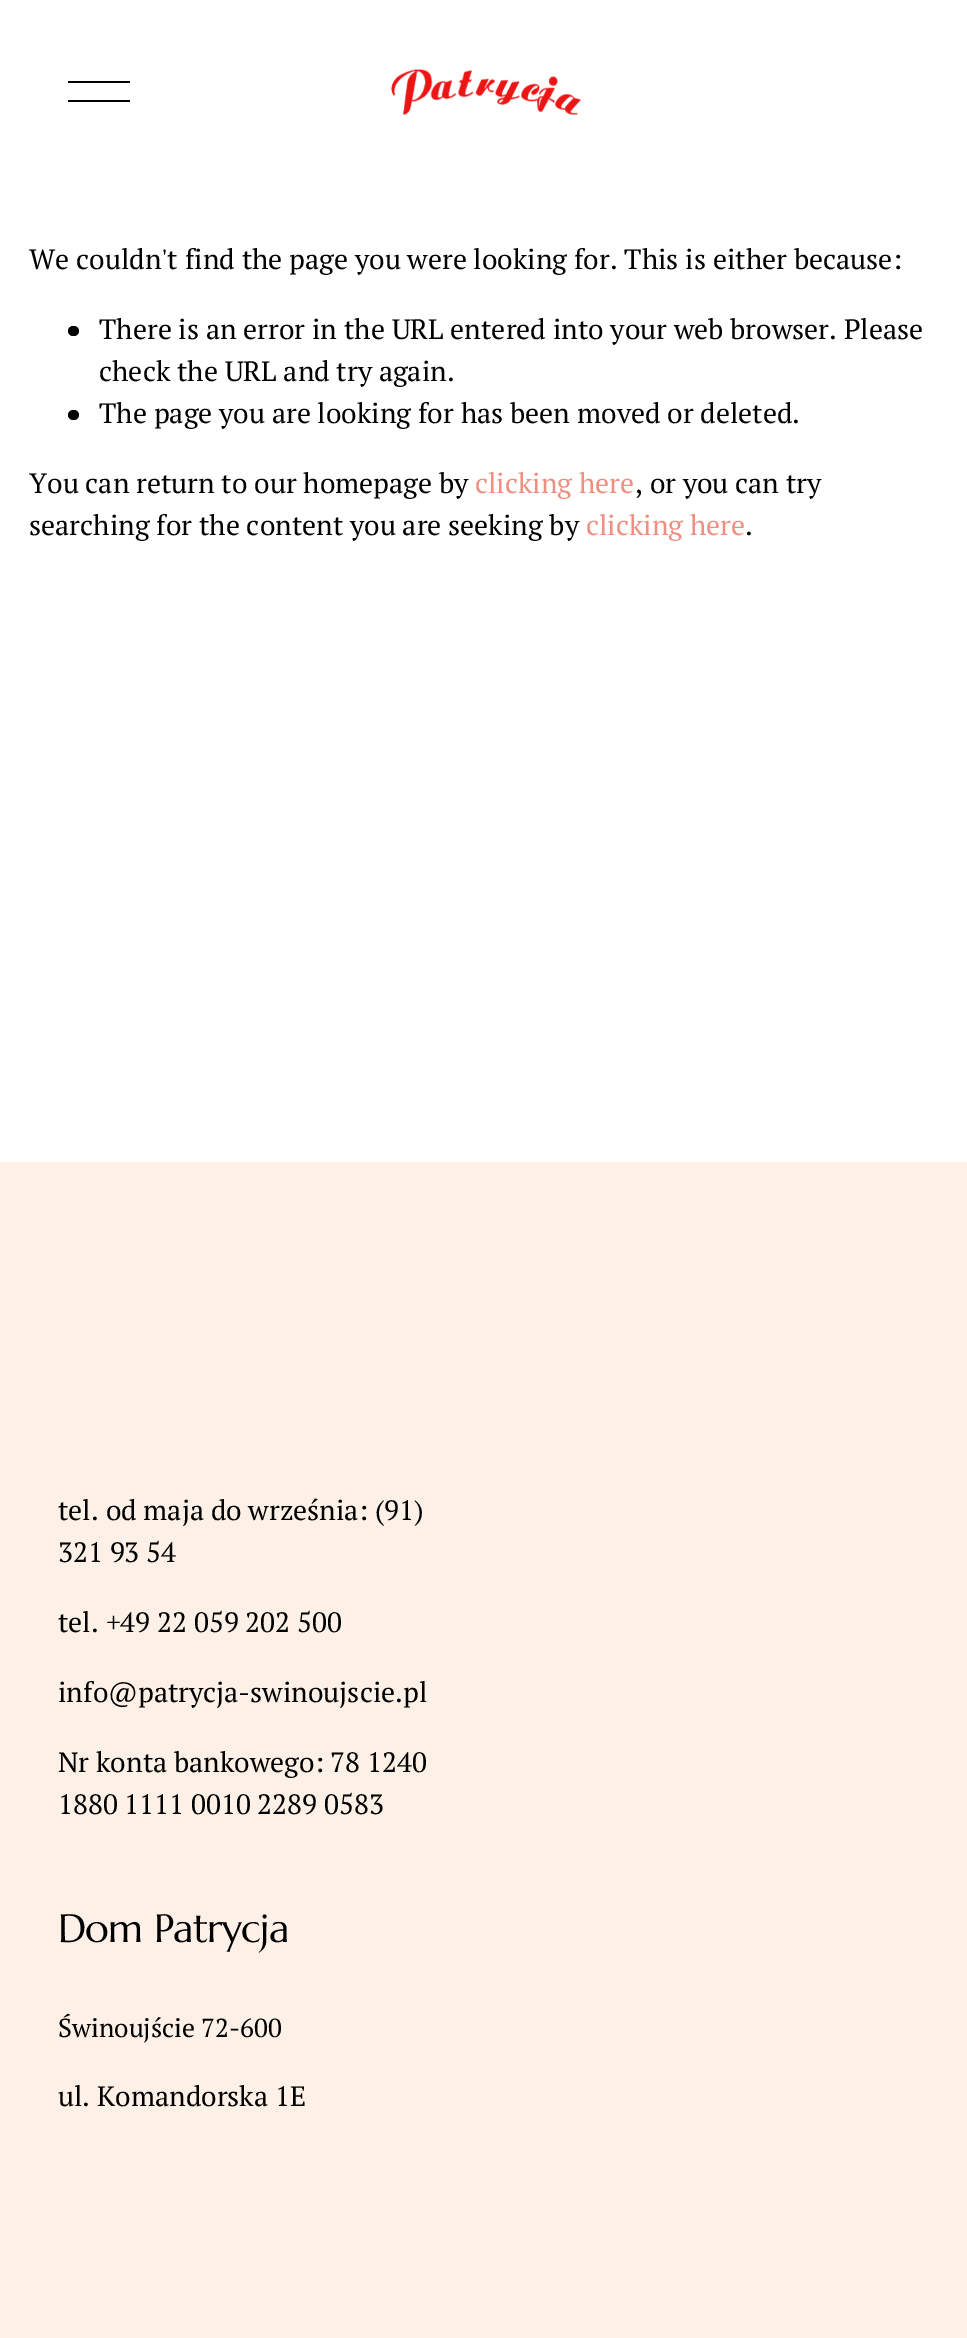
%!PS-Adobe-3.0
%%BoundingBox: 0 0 967 2338
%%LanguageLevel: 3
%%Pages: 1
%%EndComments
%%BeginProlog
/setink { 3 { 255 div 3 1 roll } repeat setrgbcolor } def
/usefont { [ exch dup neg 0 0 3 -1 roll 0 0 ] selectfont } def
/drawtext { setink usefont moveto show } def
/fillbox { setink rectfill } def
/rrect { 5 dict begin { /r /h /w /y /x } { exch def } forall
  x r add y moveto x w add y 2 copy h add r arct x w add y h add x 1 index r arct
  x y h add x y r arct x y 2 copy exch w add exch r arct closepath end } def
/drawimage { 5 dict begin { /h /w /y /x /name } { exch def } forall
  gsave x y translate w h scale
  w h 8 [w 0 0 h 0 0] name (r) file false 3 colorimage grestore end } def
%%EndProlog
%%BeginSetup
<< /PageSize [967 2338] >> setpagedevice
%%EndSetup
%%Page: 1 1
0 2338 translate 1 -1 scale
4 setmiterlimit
0 0 967 2338 255 255 255 fillbox
68 81 62 2 0 0 0 fillbox
68 100 62 2 0 0 0 fillbox
(assets/img1.rgb) 391 69 190 46 drawimage
(We couldn't find the page you were looking for. This is either because:) 29 269 /PTSerif-Regular 28 0 0 0 drawtext
68 326 11 10 5 rrect fill
(There is an error in the URL entered into your web browser. Please) 99 339 /PTSerif-Regular 28 0 0 0 drawtext
(check the URL and try again.) 99 381 /PTSerif-Regular 28 0 0 0 drawtext
68 410 11 10 5 rrect fill
(The page you are looking for has been moved or deleted.) 99 423 /PTSerif-Regular 28 0 0 0 drawtext
(You can return to our homepage by) 29 493 /PTSerif-Regular 28 0 0 0 drawtext
(clicking here) 475 493 /PTSerif-Regular 28 240 142 128 drawtext
(, or you can try) 635 493 /PTSerif-Regular 28 0 0 0 drawtext
(searching for the content you are seeking by) 29 535 /PTSerif-Regular 28 0 0 0 drawtext
(clicking here) 586 535 /PTSerif-Regular 28 240 142 128 drawtext
(.) 745 535 /PTSerif-Regular 28 0 0 0 drawtext
0 1162 967 1176 253 240 230 fillbox
(tel. od maja do września: \(91\)) 58 1520 /PTSerif-Regular 28 0 0 0 drawtext
(321 93 54) 58 1562 /PTSerif-Regular 28 0 0 0 drawtext
(tel. +49 22 059 202 500) 58 1632 /PTSerif-Regular 28 0 0 0 drawtext
(info@patrycja-swinoujscie.pl) 58 1702 /PTSerif-Regular 28 0 0 0 drawtext
(Nr konta bankowego: 78 1240) 58 1772 /PTSerif-Regular 28 0 0 0 drawtext
(1880 1111 0010 2289 0583) 58 1814 /PTSerif-Regular 28 0 0 0 drawtext
/Marcellus-Regular 39.5 usefont
58 1942 moveto -0.75 0 (Dom Patrycja) ashow
(Świnoujście 72-600) 58 2037 /PTSerif-Regular 26 0 0 0 drawtext
(ul. Komandorska 1E) 58 2106 /PTSerif-Regular 28 0 0 0 drawtext
showpage
%%EOF
